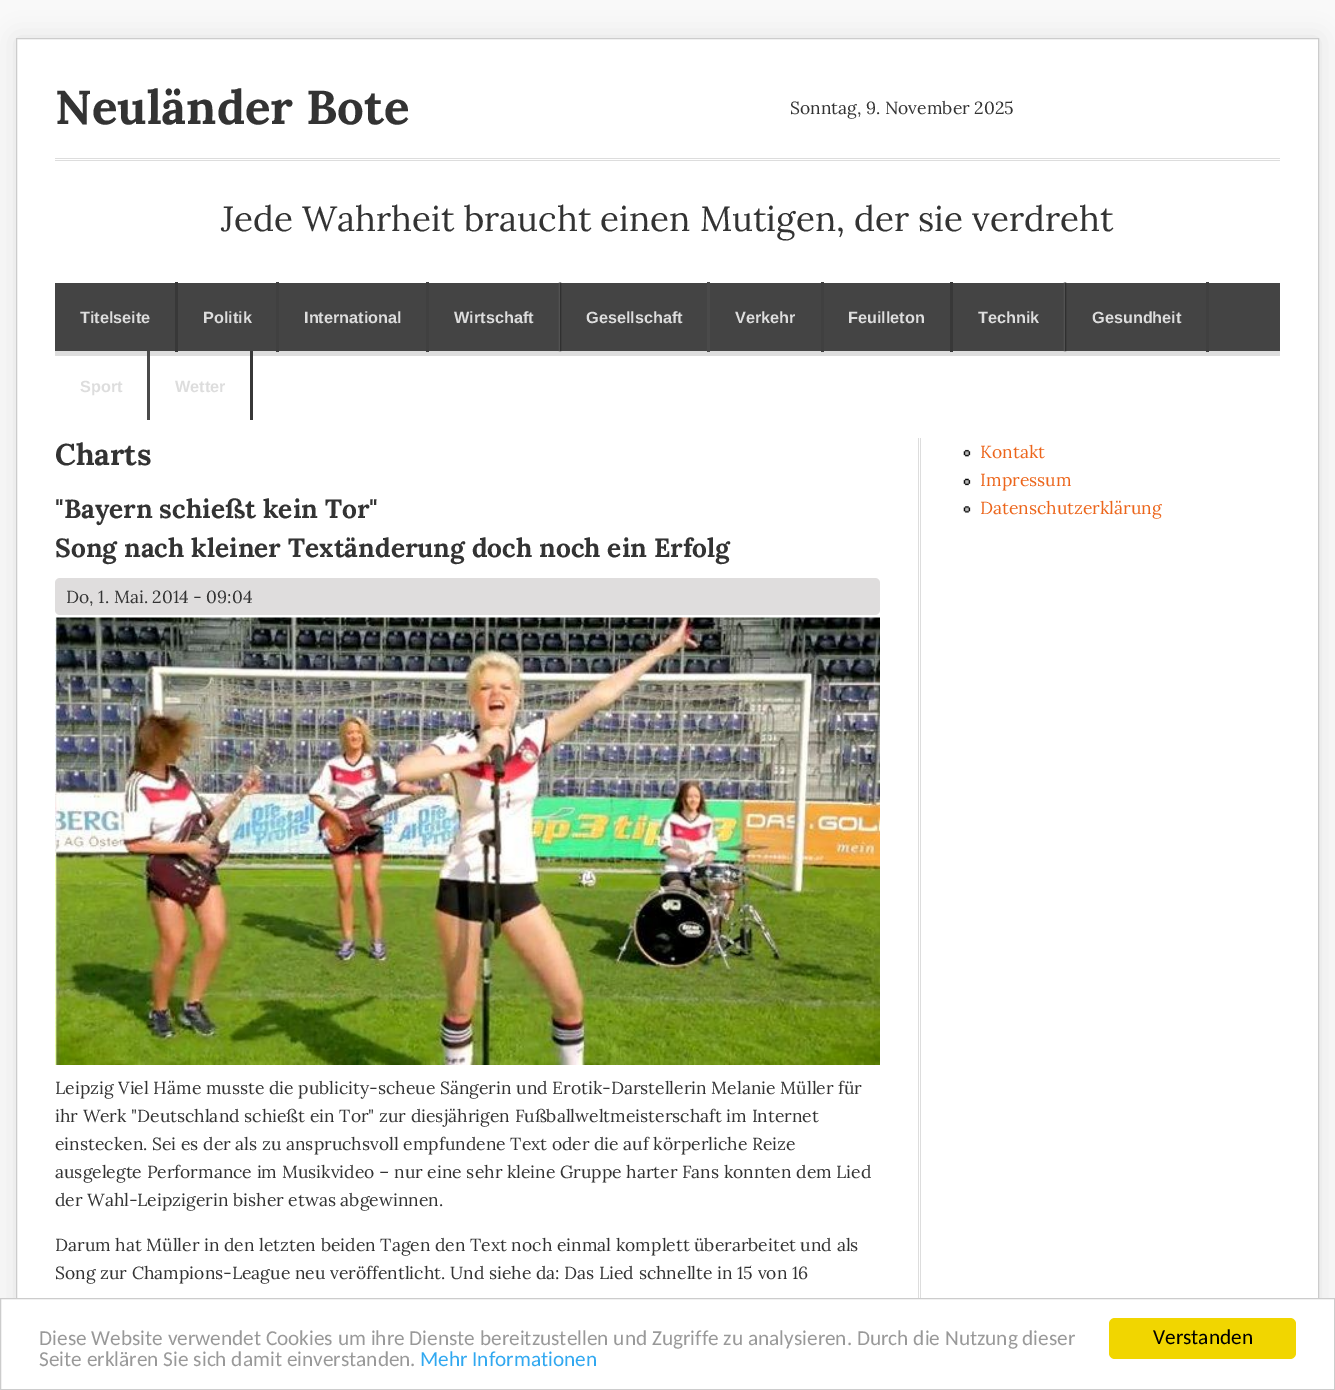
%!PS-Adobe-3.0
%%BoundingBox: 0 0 1335 1390
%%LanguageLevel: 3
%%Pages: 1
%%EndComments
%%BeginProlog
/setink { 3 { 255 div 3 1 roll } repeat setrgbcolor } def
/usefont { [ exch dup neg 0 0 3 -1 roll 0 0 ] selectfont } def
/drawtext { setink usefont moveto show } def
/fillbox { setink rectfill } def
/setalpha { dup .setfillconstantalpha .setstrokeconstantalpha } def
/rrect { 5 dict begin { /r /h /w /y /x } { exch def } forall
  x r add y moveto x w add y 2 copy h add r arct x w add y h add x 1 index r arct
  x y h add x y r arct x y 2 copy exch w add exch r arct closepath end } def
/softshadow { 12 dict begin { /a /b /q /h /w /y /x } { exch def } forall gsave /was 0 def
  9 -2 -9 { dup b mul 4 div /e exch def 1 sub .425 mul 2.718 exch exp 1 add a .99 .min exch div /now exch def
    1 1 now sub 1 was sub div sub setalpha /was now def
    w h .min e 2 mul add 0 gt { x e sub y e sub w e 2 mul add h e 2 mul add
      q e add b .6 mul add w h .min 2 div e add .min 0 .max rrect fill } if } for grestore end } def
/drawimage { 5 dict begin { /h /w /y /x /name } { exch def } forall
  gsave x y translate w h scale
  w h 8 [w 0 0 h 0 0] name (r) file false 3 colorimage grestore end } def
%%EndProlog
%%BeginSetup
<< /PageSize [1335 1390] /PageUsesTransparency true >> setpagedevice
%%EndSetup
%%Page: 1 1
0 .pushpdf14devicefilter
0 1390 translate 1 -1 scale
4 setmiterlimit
0 0 1335 1390 249 249 249 fillbox
192 192 192 setink
16 38 1303 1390 0 12.5 0.4 softshadow
17 39 1301 1259 255 255 255 fillbox
204 204 204 setink
16.5 38.5 1302 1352 rectstroke
(Neuländer Bote) 55 124 /Lora-Bold 47.5 51 51 51 drawtext
(Sonntag, 9. November 2025) 790 114 /Lora-Regular 17.5 51 51 51 drawtext
55 158 1225 1 221 221 221 fillbox
55 160 1225 1 221 221 221 fillbox
(Jede Wahrheit braucht einen Mutigen, der sie verdreht) 221 231 /Lora-Regular 35 51 51 51 drawtext
55 283 1225 68 68 68 68 fillbox
55 351 1225 5 221 221 221 fillbox
175 282 3 70 56 56 56 fillbox
(Titelseite) 80 323 /LiberationSans-Bold 16.25 221 221 221 drawtext
276 282 3 70 64 64 64 fillbox
(Politik) 203 323 /LiberationSans-Bold 16.25 221 221 221 drawtext
426 282 3 70 64 64 64 fillbox
(International) 304 323 /LiberationSans-Bold 16.25 221 221 221 drawtext
(assets/img1.rgb) 558 282 4 70 drawimage
(Wirtschaft) 454 323 /LiberationSans-Bold 16.25 221 221 221 drawtext
707 282 3 70 74 74 74 fillbox
(Gesellschaft) 586 323 /LiberationSans-Bold 16.25 221 221 221 drawtext
821 282 3 70 64 64 64 fillbox
(Verkehr) 735 323 /LiberationSans-Bold 16.25 221 221 221 drawtext
950 282 3 70 56 56 56 fillbox
(Feuilleton) 848 323 /LiberationSans-Bold 16.25 221 221 221 drawtext
(assets/img1.rgb) 1063 282 4 70 drawimage
(Technik) 978 323 /LiberationSans-Bold 16.25 221 221 221 drawtext
1206 282 3 70 64 64 64 fillbox
(Gesundheit) 1092 323 /LiberationSans-Bold 16.25 221 221 221 drawtext
147 351 3 69 74 74 74 fillbox
(Sport) 80 392 /LiberationSans-Bold 16.25 221 221 221 drawtext
250 351 3 69 56 56 56 fillbox
(Wetter) 175 392 /LiberationSans-Bold 16.25 221 221 221 drawtext
918 438 1 860 221 221 221 fillbox
920 438 1 860 221 221 221 fillbox
(Charts) 55 465 /Lora-Bold 30 51 51 51 drawtext
("Bayern schießt kein Tor") 55 518 /Lora-Bold 26.25 51 51 51 drawtext
(Song nach kleiner Textänderung doch noch ein Erfolg) 55 557 /Lora-Bold 26.25 51 51 51 drawtext
223 221 221 setink
55 578 825 37 5 rrect fill
(Do, 1. Mai. 2014 - 09:04) 66 603 /Lora-Regular 17.5 51 51 51 drawtext
(assets/img2.rgb) 55 617 825 448 drawimage
(Leipzig Viel Häme musste die publicity-scheue Sängerin und Erotik-Darstellerin Melanie Müller für) 55 1094 /Lora-Regular 17.5 51 51 51 drawtext
(ihr Werk "Deutschland schießt ein Tor" zur diesjährigen Fußballweltmeisterschaft im Internet) 55 1122 /Lora-Regular 17.5 51 51 51 drawtext
(einstecken. Sei es der als zu anspruchsvoll empfundene Text oder die auf körperliche Reize) 55 1150 /Lora-Regular 17.5 51 51 51 drawtext
(ausgelegte Performance im Musikvideo – nur eine sehr kleine Gruppe harter Fans konnten dem Lied) 55 1178 /Lora-Regular 17.5 51 51 51 drawtext
(der Wahl-Leipzigerin bisher etwas abgewinnen.) 55 1206 /Lora-Regular 17.5 51 51 51 drawtext
(Darum hat Müller in den letzten beiden Tagen den Text noch einmal komplett überarbeitet und als) 55 1251 /Lora-Regular 17.5 51 51 51 drawtext
(Song zur Champions-League neu veröffentlicht. Und siehe da: Das Lied schnellte in 15 von 16) 55 1279 /Lora-Regular 17.5 51 51 51 drawtext
(assets/img3.rgb) 963 449 8 8 drawimage
(Kontakt) 980 458 /Lora-Regular 17.5 236 101 27 drawtext
(assets/img4.rgb) 963 478 8 8 drawimage
(Impressum) 980 486 /Lora-Regular 17.5 236 101 27 drawtext
(assets/img5.rgb) 963 506 8 7 drawimage
(Datenschutzerklärung) 980 514 /Lora-Regular 17.5 236 101 27 drawtext
255 255 255 setink
0.5 1298.5 moveto 1334.5 1298.5 lineto 1334.5 1389.5 lineto 0.5 1389.5 lineto closepath gsave fill grestore
204 204 204 setink
stroke
(Diese Website verwendet Cookies um ihre Dienste bereitzustellen und Zugriffe zu analysieren. Durch die Nutzung dieser) 39 1345 /Carlito-Regular 21.25 153 153 153 drawtext
(Seite erklären Sie sich damit einverstanden.) 39 1366 /Carlito-Regular 21.25 153 153 153 drawtext
(Mehr Informationen) 420 1366 /Carlito-Regular 21.25 49 168 240 drawtext
241 214 0 setink
1109 1318 187 41 6 rrect fill
(Verstanden) 1153 1344 /Carlito-Regular 21.25 0 0 0 drawtext
.poppdf14devicefilter showpage
%%EOF
